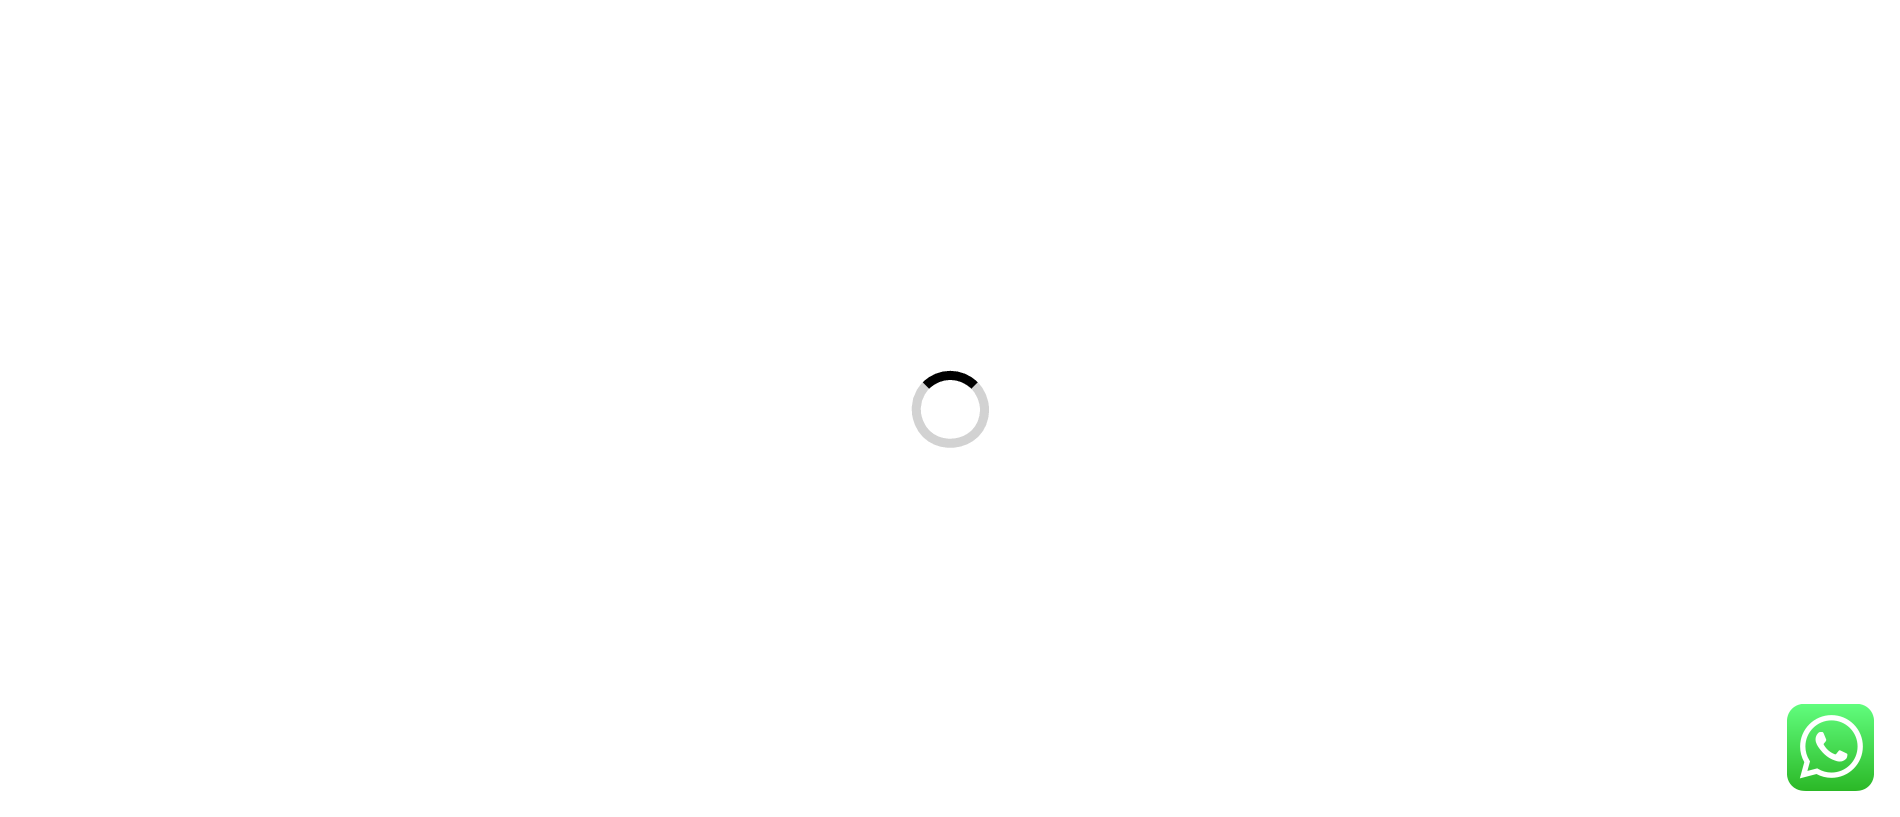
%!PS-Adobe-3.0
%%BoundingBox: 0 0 1900 817
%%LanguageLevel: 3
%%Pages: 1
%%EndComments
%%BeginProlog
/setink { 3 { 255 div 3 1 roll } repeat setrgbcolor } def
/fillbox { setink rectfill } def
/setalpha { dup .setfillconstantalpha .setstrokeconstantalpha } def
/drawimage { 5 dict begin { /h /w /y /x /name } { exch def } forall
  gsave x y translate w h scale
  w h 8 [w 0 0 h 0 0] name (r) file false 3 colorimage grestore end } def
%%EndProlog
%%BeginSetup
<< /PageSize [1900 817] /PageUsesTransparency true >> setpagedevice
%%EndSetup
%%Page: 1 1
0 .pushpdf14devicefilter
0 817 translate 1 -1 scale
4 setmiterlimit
0 0 1900 817 255 255 255 fillbox
0 0 0 setink
8.8 setlinewidth
926 385.5 moveto 939.5 372 961 372 974.5 385.5 curveto stroke
0.2 setalpha
29 29 29 setink
974.5 385.5 moveto 980.5 391.5 984.5 400.5 984.5 409.5 curveto 984.5 450.5 925 456 917 416 curveto 914.5 405 918 393.5 926 385.5 curveto stroke
1 setalpha
(assets/img1.rgb) 1787 704 87 87 drawimage
.poppdf14devicefilter showpage
%%EOF
